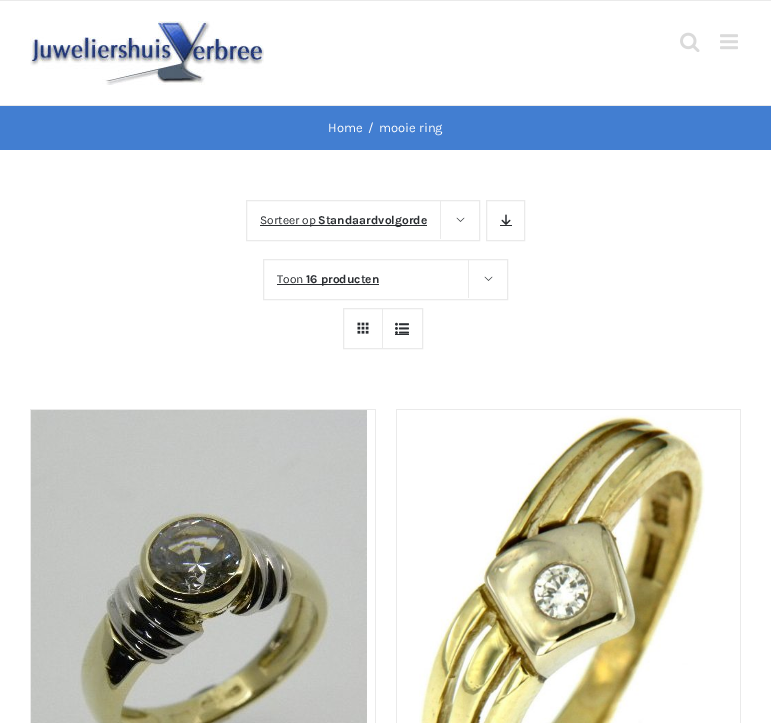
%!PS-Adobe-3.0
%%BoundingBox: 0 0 771 723
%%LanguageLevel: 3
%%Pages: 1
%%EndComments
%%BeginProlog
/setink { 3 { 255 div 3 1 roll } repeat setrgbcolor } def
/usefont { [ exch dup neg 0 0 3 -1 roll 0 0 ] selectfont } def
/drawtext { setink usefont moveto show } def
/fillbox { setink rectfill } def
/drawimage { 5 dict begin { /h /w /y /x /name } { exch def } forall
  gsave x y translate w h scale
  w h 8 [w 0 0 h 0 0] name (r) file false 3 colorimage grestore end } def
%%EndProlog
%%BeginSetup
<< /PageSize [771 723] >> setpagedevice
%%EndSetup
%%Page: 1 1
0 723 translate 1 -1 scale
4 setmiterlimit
0 0 771 723 255 255 255 fillbox
0 0 771 1 234 234 234 fillbox
0 105 771 1 234 234 234 fillbox
(assets/img1.rgb) 30 21 234 64 drawimage
(assets/img2.rgb) 680 32 20 20 drawimage
(assets/img3.rgb) 720 34 18 16 drawimage
0 106 771 44 66 126 209 fillbox
(Home) 328 132 /Karla-Regular 13 255 255 255 drawtext
(/) 368 132 /Karla-Regular 13 255 255 255 drawtext
(mooie ring) 379 132 /Karla-Regular 13 255 255 255 drawtext
234 234 234 setink
246.5 200.5 233 40 rectstroke
260 225 167 1 43 46 50 fillbox
(Sorteer op) 260 224 /Karla-Regular 12 43 46 50 drawtext
(Standaardvolgorde) 318 224 /Karla-Bold 12 43 46 50 drawtext
440 200 1 39 234 234 234 fillbox
(assets/img4.rgb) 456 217 9 5 drawimage
486.5 200.5 38 40 rectstroke
(assets/img5.rgb) 501 214 10 11 drawimage
500 225 12 1 43 46 50 fillbox
234 234 234 setink
263.5 259.5 244 40 rectstroke
(Toon) 277 283 /Karla-Regular 12 43 46 50 drawtext
277 284 102 1 43 46 50 fillbox
(16 producten) 306 283 /Karla-Bold 12 43 46 50 drawtext
468 259 1 39 234 234 234 fillbox
(assets/img4.rgb) 484 276 9 5 drawimage
343.5 308.5 79 40 rectstroke
382 309 1 39 234 234 234 fillbox
(assets/img6.rgb) 357 322 12 12 drawimage
(assets/img7.rgb) 395 322 14 12 drawimage
395 334 14 1 43 46 50 fillbox
30 409 346 1 234 234 234 fillbox
375 409 1 314 234 234 234 fillbox
30 409 1 314 234 234 234 fillbox
(assets/img8.rgb) 31 410 336 313 drawimage
396 409 345 1 234 234 234 fillbox
740 409 1 314 234 234 234 fillbox
396 409 1 314 234 234 234 fillbox
(assets/img9.rgb) 419 415 286 308 drawimage
showpage
%%EOF
